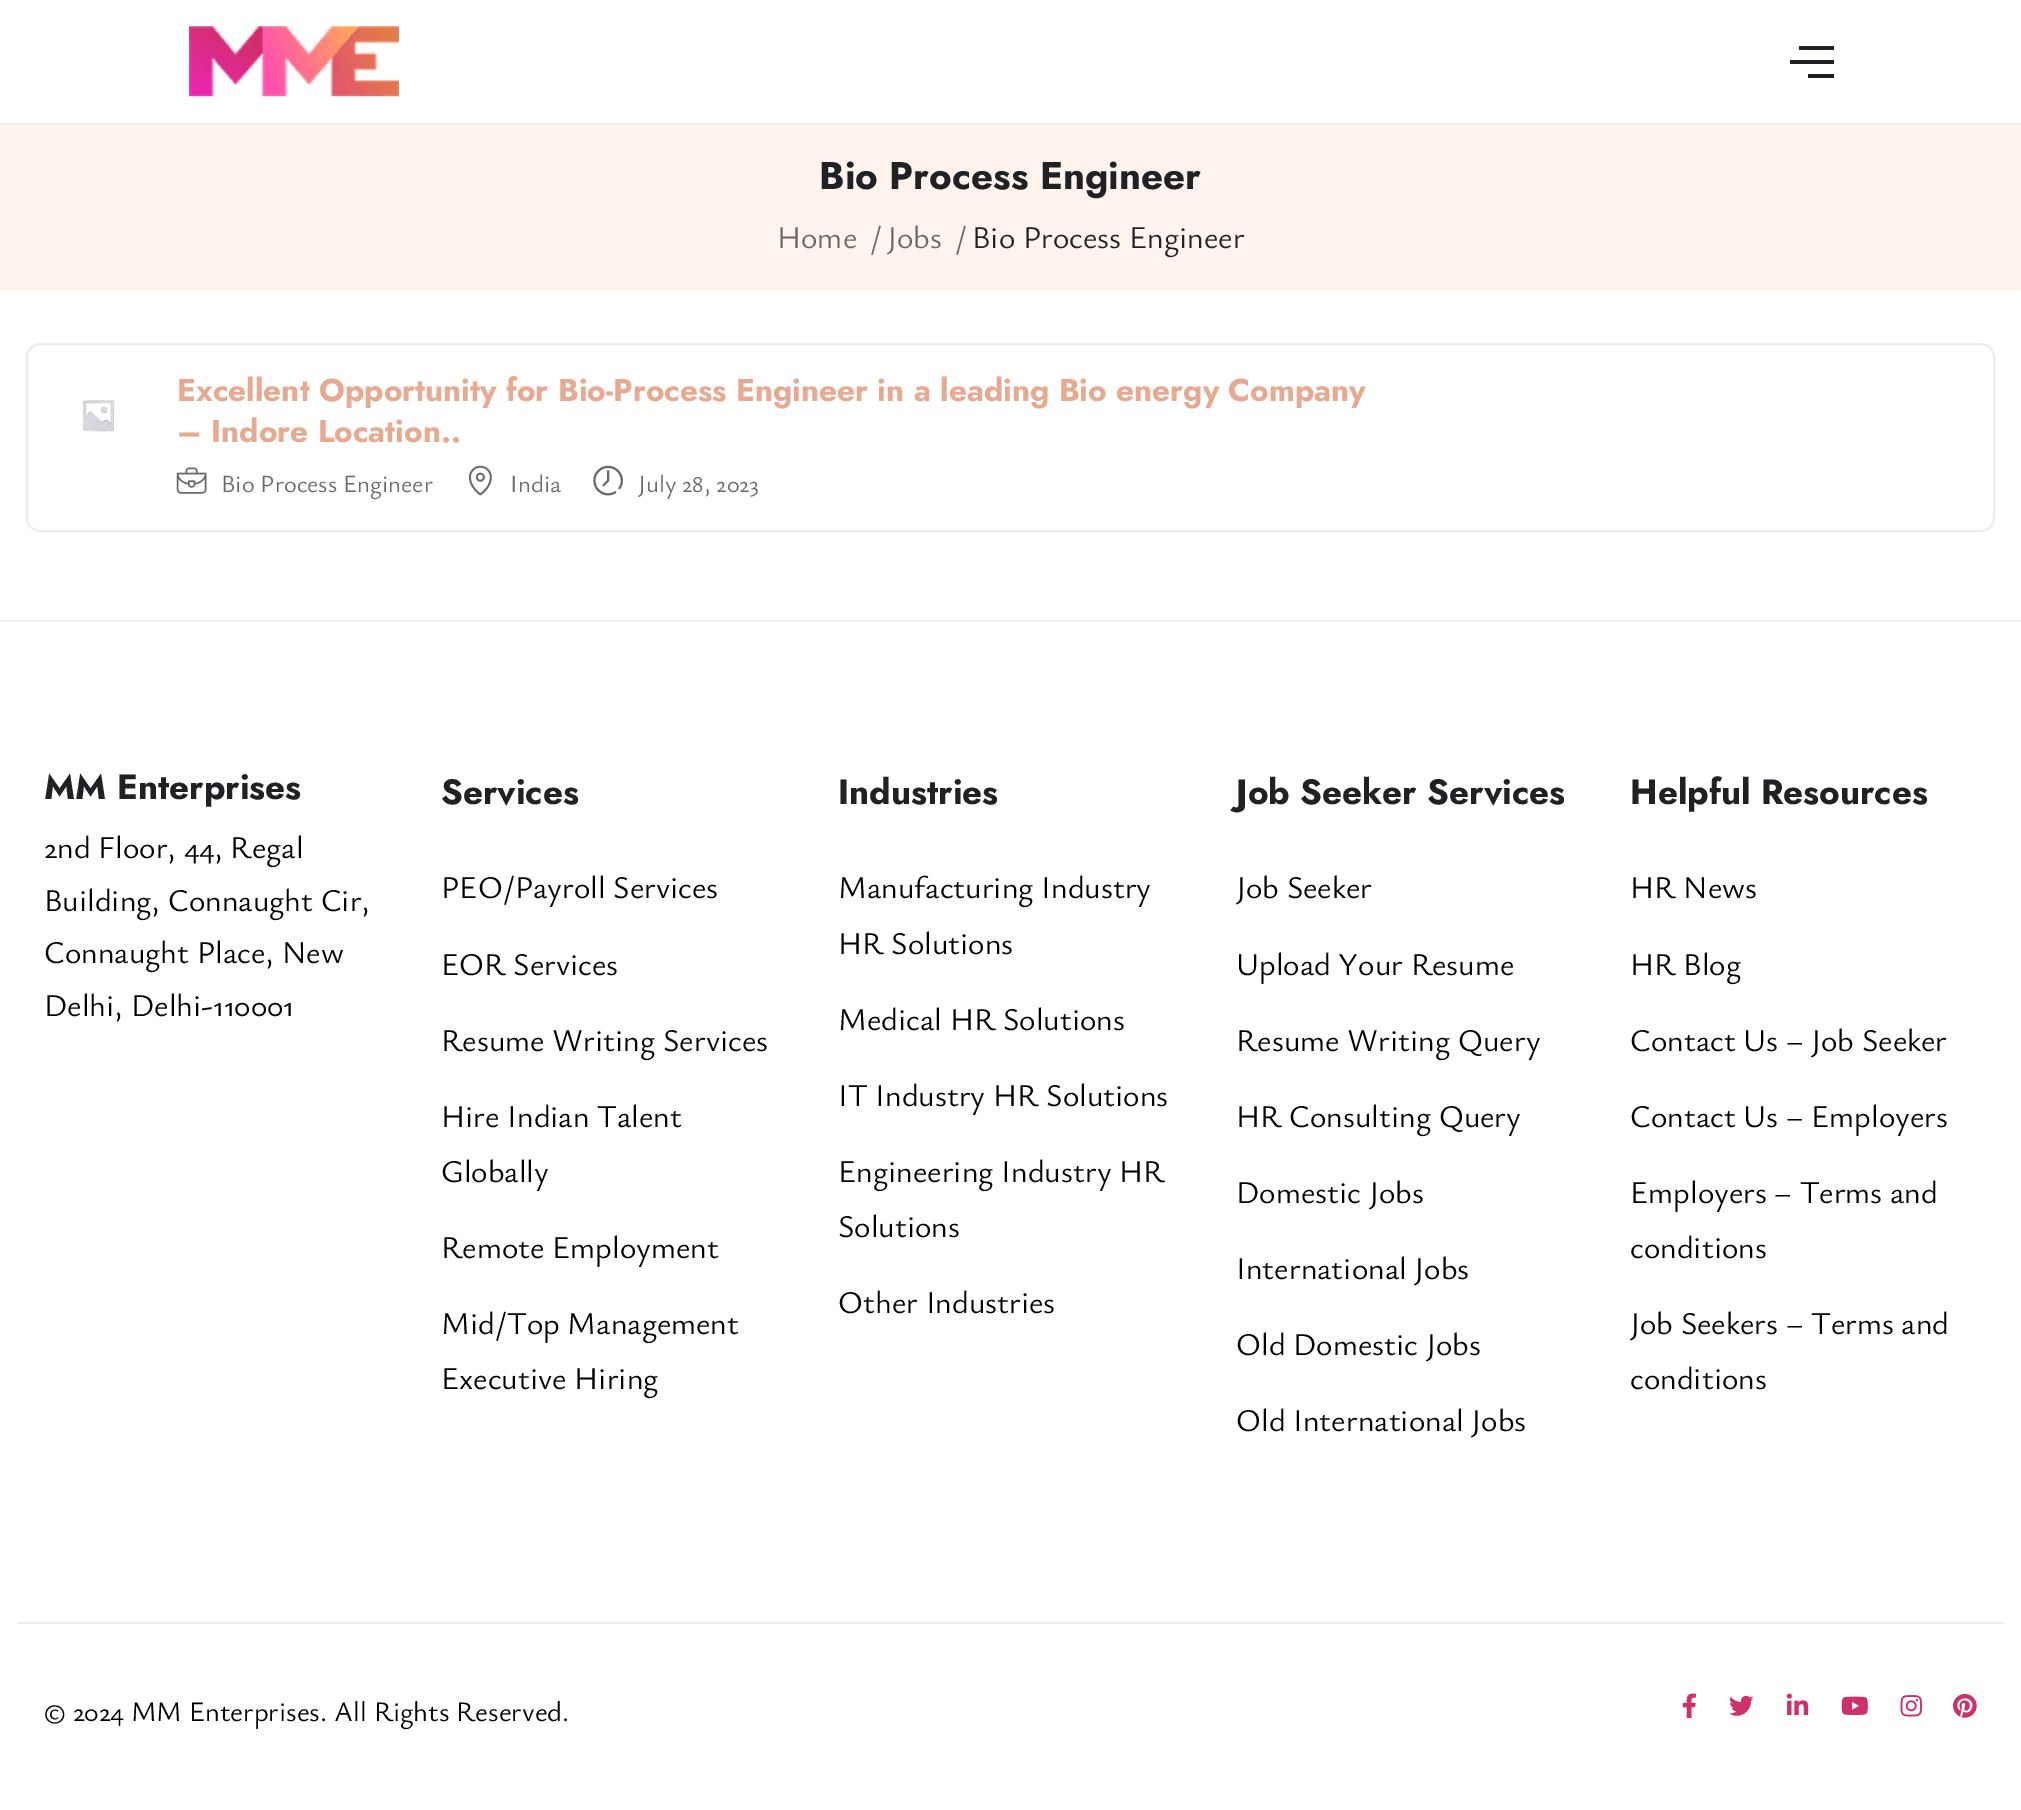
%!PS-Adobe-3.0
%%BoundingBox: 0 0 2021 1810
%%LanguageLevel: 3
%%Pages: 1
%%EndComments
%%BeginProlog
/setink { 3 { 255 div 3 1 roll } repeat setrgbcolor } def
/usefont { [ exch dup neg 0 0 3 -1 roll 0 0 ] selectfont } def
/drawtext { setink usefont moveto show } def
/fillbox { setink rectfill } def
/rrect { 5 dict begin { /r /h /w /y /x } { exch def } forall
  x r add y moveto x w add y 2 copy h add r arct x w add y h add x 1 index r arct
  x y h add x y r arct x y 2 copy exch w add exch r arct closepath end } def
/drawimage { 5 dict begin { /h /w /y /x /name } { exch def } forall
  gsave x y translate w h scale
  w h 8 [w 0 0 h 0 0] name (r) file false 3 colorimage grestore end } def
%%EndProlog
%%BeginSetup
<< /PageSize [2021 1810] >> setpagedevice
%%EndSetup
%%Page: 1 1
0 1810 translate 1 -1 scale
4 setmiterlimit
0 0 2021 1810 255 255 255 fillbox
0 123 2021 2 236 237 242 fillbox
(assets/img1.rgb) 189 26 210 71 drawimage
1799 46 35 4 32 33 36 fillbox
1790 60 44 4 32 33 36 fillbox
1808 74 26 4 32 33 36 fillbox
0 125 2021 166 254 243 237 fillbox
(Bio Process Engineer) 819 189 /Jost-Bold 38.5 32 33 36 drawtext
(Home) 777 248 /Ysabeau-Regular 31.5 105 105 105 drawtext
(/) 870 248 /Ysabeau-Regular 31.5 105 105 105 drawtext
(Jobs) 887 248 /Ysabeau-Regular 31.5 105 105 105 drawtext
(/) 955 248 /Ysabeau-Regular 31.5 105 105 105 drawtext
(Bio Process Engineer) 972 248 /Ysabeau-Regular 31.5 32 33 36 drawtext
236 237 242 setink
2 setlinewidth
27 344 1967 187 13 rrect stroke
(assets/img2.rgb) 83 400 32 32 drawimage
(Excellent Opportunity for Bio-Process Engineer in a leading Bio energy Company) 177 401 /Jost-Bold 31.5 231 170 145 drawtext
(– Indore Location..) 177 442 /Jost-Bold 31.5 231 170 145 drawtext
(assets/img3.rgb) 176 467 31 27 drawimage
(Bio Process Engineer) 221 492 /Ysabeau-Regular 24.5 105 105 105 drawtext
(assets/img4.rgb) 468 465 24 31 drawimage
(India) 510 492 /Ysabeau-Regular 24.5 105 105 105 drawtext
(assets/img5.rgb) 593 465 30 31 drawimage
(July 28, 2023) 638 492 /Ysabeau-Regular 24.5 105 105 105 drawtext
0 620 2021 2 241 241 241 fillbox
(MM Enterprises) 44 799 /Jost-Bold 35 32 33 36 drawtext
(2nd Floor, 44, Regal) 44 858 /Ysabeau-Regular 31.5 0 0 0 drawtext
(Building, Connaught Cir,) 44 911 /Ysabeau-Regular 31.5 0 0 0 drawtext
(Connaught Place, New) 44 963 /Ysabeau-Regular 31.5 0 0 0 drawtext
(Delhi, Delhi-110001) 44 1016 /Ysabeau-Regular 31.5 0 0 0 drawtext
(Services) 441 804 /Jost-Bold 35 32 33 36 drawtext
(PEO/Payroll Services) 441 898 /Ysabeau-Regular 31.5 0 0 0 drawtext
(EOR Services) 441 975 /Ysabeau-Regular 31.5 0 0 0 drawtext
(Resume Writing Services) 441 1051 /Ysabeau-Regular 31.5 0 0 0 drawtext
(Hire Indian Talent) 441 1127 /Ysabeau-Regular 31.5 0 0 0 drawtext
(Globally) 441 1182 /Ysabeau-Regular 31.5 0 0 0 drawtext
(Remote Employment) 441 1258 /Ysabeau-Regular 31.5 0 0 0 drawtext
(Mid/Top Management) 441 1334 /Ysabeau-Regular 31.5 0 0 0 drawtext
(Executive Hiring) 441 1389 /Ysabeau-Regular 31.5 0 0 0 drawtext
(Industries) 838 804 /Jost-Bold 35 32 33 36 drawtext
(Manufacturing Industry) 838 898 /Ysabeau-Regular 31.5 0 0 0 drawtext
(HR Solutions) 838 954 /Ysabeau-Regular 31.5 0 0 0 drawtext
(Medical HR Solutions) 838 1030 /Ysabeau-Regular 31.5 0 0 0 drawtext
(IT Industry HR Solutions) 838 1106 /Ysabeau-Regular 31.5 0 0 0 drawtext
(Engineering Industry HR) 838 1182 /Ysabeau-Regular 31.5 0 0 0 drawtext
(Solutions) 838 1237 /Ysabeau-Regular 31.5 0 0 0 drawtext
(Other Industries) 838 1313 /Ysabeau-Regular 31.5 0 0 0 drawtext
(Job Seeker Services) 1236 804 /Jost-Bold 35 32 33 36 drawtext
(Job Seeker) 1236 898 /Ysabeau-Regular 31.5 0 0 0 drawtext
(Upload Your Resume) 1236 975 /Ysabeau-Regular 31.5 0 0 0 drawtext
(Resume Writing Query) 1236 1051 /Ysabeau-Regular 31.5 0 0 0 drawtext
(HR Consulting Query) 1236 1127 /Ysabeau-Regular 31.5 0 0 0 drawtext
(Domestic Jobs) 1236 1203 /Ysabeau-Regular 31.5 0 0 0 drawtext
(International Jobs) 1236 1279 /Ysabeau-Regular 31.5 0 0 0 drawtext
(Old Domestic Jobs) 1236 1355 /Ysabeau-Regular 31.5 0 0 0 drawtext
(Old International Jobs) 1236 1431 /Ysabeau-Regular 31.5 0 0 0 drawtext
(Helpful Resources) 1630 804 /Jost-Bold 35 32 33 36 drawtext
(HR News) 1630 898 /Ysabeau-Regular 31.5 0 0 0 drawtext
(HR Blog) 1630 975 /Ysabeau-Regular 31.5 0 0 0 drawtext
(Contact Us – Job Seeker) 1630 1051 /Ysabeau-Regular 31.5 0 0 0 drawtext
(Contact Us – Employers) 1630 1127 /Ysabeau-Regular 31.5 0 0 0 drawtext
(Employers – Terms and) 1630 1203 /Ysabeau-Regular 31.5 0 0 0 drawtext
(conditions) 1630 1258 /Ysabeau-Regular 31.5 0 0 0 drawtext
(Job Seekers – Terms and) 1630 1334 /Ysabeau-Regular 31.5 0 0 0 drawtext
(conditions) 1630 1389 /Ysabeau-Regular 31.5 0 0 0 drawtext
18 1622 1986 2 236 237 242 fillbox
(© 2024 MM Enterprises. All Rights Reserved.) 44 1721 /Ysabeau-Regular 28 0 0 0 drawtext
(assets/img6.rgb) 1682 1693 14 26 drawimage
(assets/img7.rgb) 1729 1695 25 21 drawimage
(assets/img8.rgb) 1786 1693 23 22 drawimage
(assets/img9.rgb) 1841 1696 27 19 drawimage
(assets/img10.rgb) 1900 1695 22 22 drawimage
(assets/img11.rgb) 1953 1693 24 25 drawimage
showpage
%%EOF
